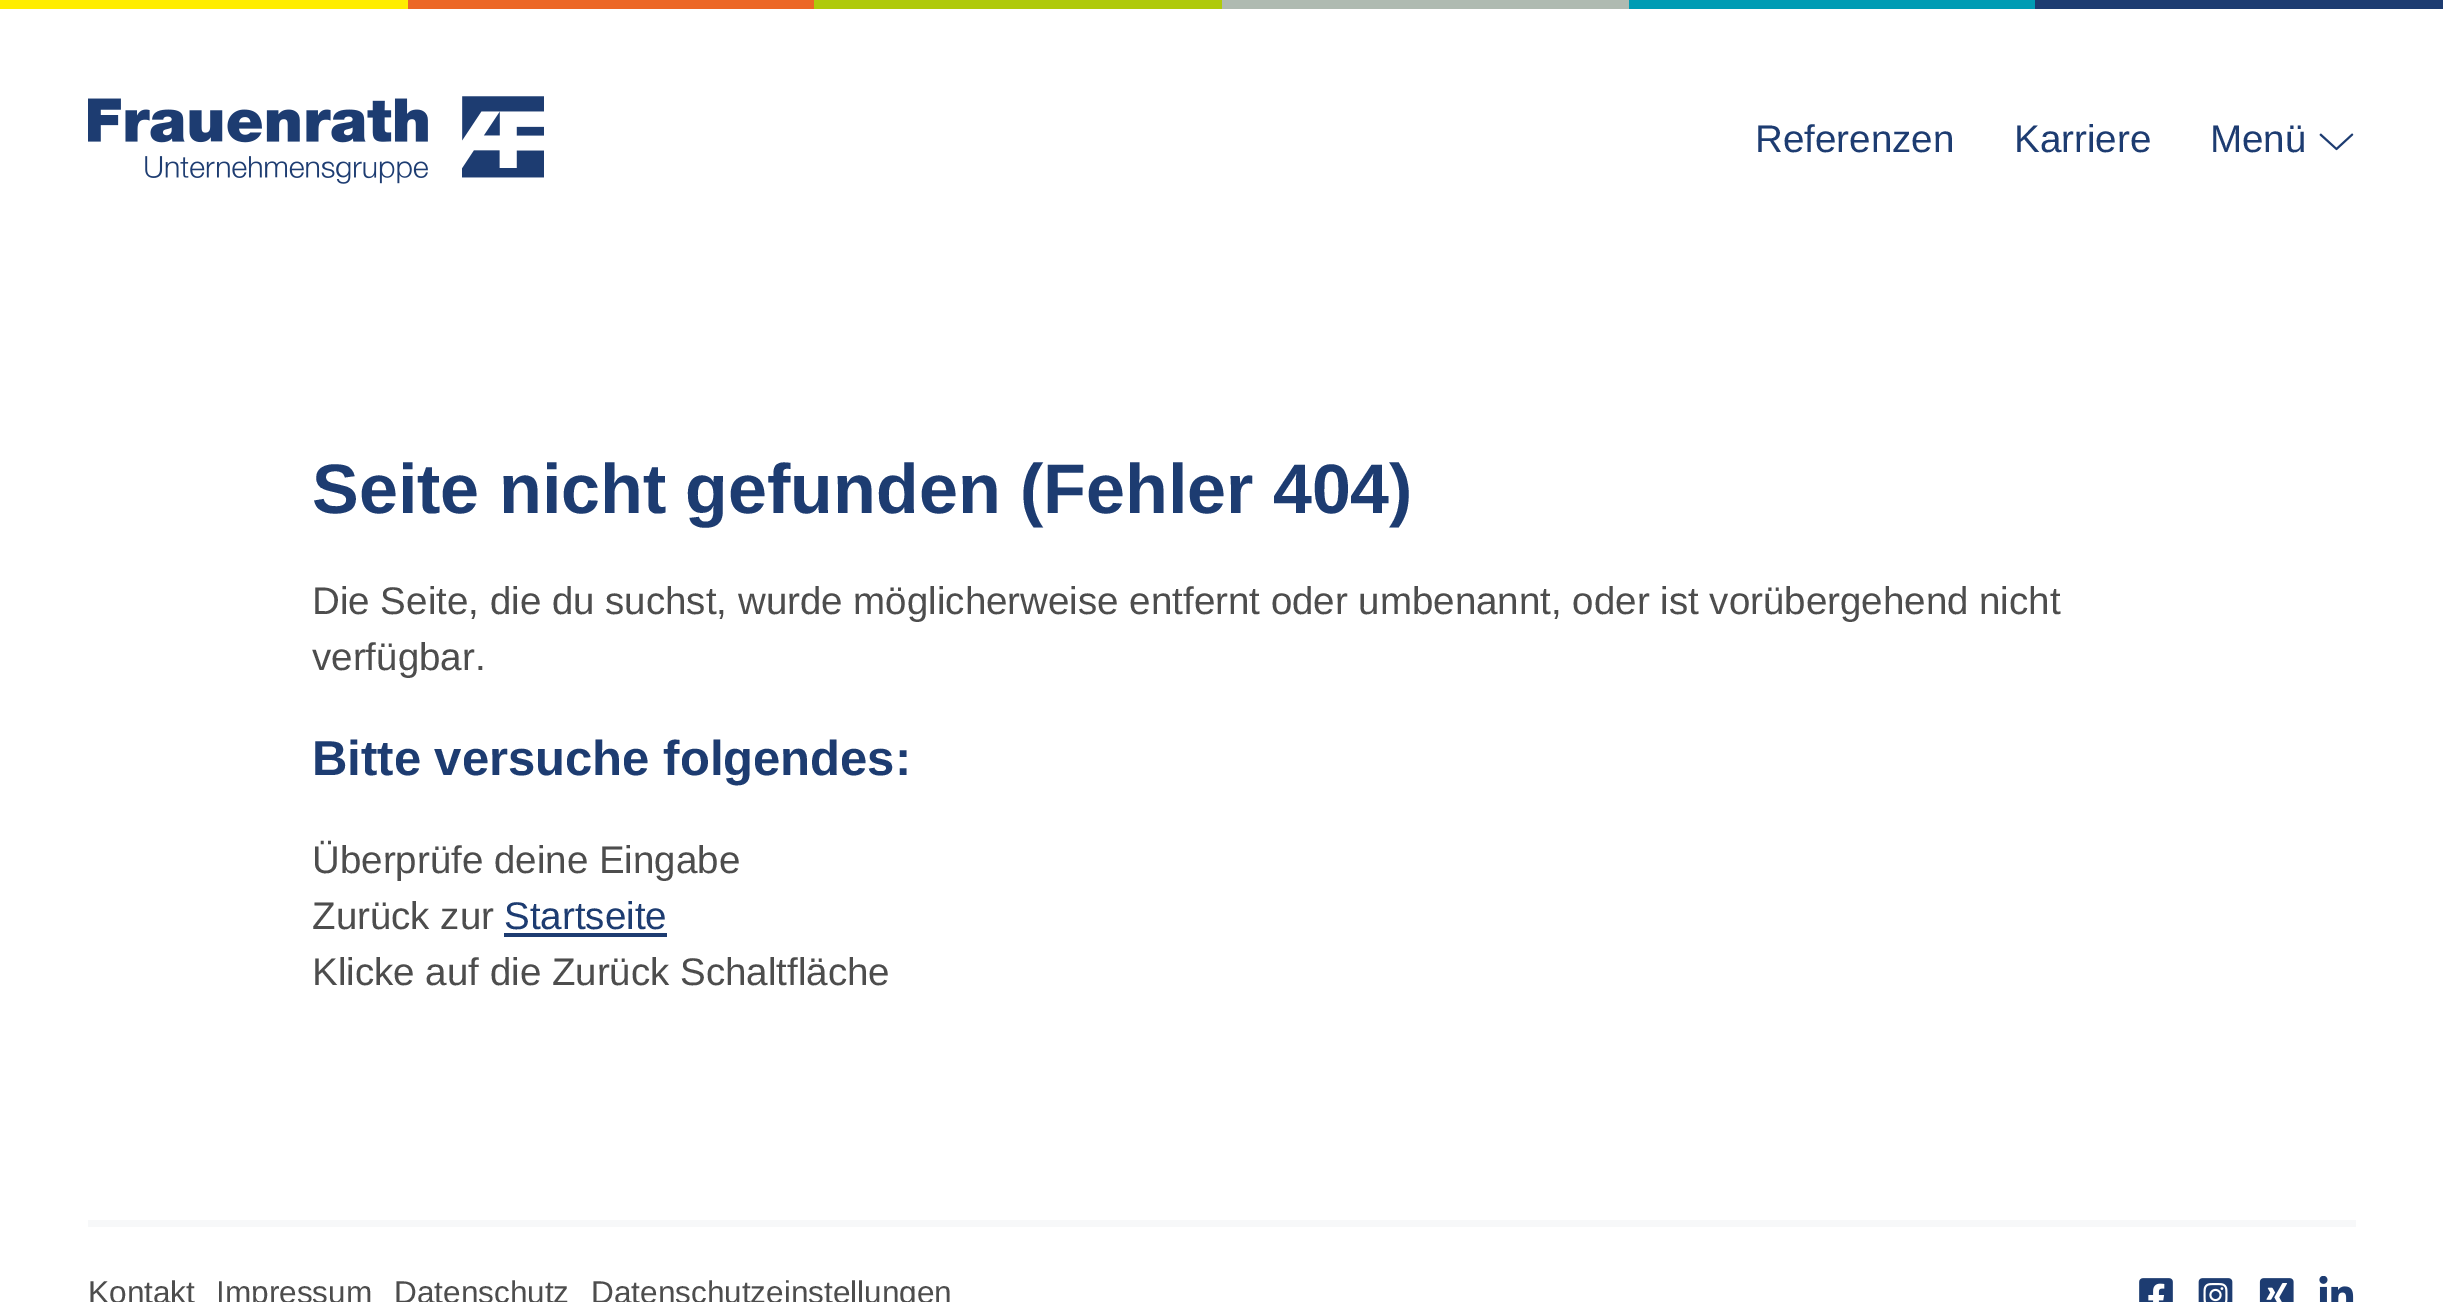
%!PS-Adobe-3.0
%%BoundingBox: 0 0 2443 1302
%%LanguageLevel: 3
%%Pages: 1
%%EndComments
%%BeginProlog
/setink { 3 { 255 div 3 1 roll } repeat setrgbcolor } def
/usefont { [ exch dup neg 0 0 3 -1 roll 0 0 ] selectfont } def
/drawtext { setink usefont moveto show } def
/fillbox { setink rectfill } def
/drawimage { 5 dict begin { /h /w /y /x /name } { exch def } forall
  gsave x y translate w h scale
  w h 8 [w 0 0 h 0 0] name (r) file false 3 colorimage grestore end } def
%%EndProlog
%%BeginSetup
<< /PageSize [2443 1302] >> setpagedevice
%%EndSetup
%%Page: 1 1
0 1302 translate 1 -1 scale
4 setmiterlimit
0 0 2443 1302 255 255 255 fillbox
0 0 408 9 255 237 0 fillbox
408 0 406 9 236 103 38 fillbox
814 0 408 9 175 202 11 fillbox
1222 0 407 9 175 186 177 fillbox
1629 0 406 9 0 156 180 fillbox
2035 0 408 9 29 60 113 fillbox
(assets/img1.rgb) 88 96 456 88 drawimage
(Referenzen) 1755 152 /LiberationSans-Regular 38.5 29 60 113 drawtext
(Karriere) 2014 152 /LiberationSans-Regular 38.5 29 60 113 drawtext
(Menü) 2210 152 /LiberationSans-Regular 38.5 29 60 113 drawtext
(assets/img2.rgb) 2319 133 35 18 drawimage
(Seite nicht gefunden \(Fehler 404\)) 312 513 /LiberationSans-Bold 70 29 60 113 drawtext
(Die Seite, die du suchst, wurde möglicherweise entfernt oder umbenannt, oder ist vorübergehend nicht) 312 614 /LiberationSans-Regular 38.5 77 77 77 drawtext
(verfügbar.) 312 670 /LiberationSans-Regular 38.5 77 77 77 drawtext
(Bitte versuche folgendes:) 312 775 /LiberationSans-Bold 49 29 60 113 drawtext
(Überprüfe deine Eingabe) 312 873 /LiberationSans-Regular 38.5 77 77 77 drawtext
(Zurück zur) 312 929 /LiberationSans-Regular 38.5 77 77 77 drawtext
(Startseite) 504 929 /LiberationSans-Regular 38.5 29 60 113 drawtext
504 933 163 4 29 60 113 fillbox
(Klicke auf die Zurück Schaltfläche) 312 985 /LiberationSans-Regular 38.5 77 77 77 drawtext
88 1220 2268 7 247 248 249 fillbox
(Kontakt) 88 1303 /LiberationSans-Regular 31.5 77 77 77 drawtext
(Impressum) 216 1303 /LiberationSans-Regular 31.5 77 77 77 drawtext
(Datenschutz) 394 1303 /LiberationSans-Regular 31.5 77 77 77 drawtext
(Datenschutzeinstellungen) 591 1303 /LiberationSans-Regular 31.5 77 77 77 drawtext
(assets/img3.rgb) 2139 1278 34 24 drawimage
(assets/img4.rgb) 2198 1278 35 24 drawimage
(assets/img5.rgb) 2259 1278 35 24 drawimage
(assets/img6.rgb) 2319 1276 35 26 drawimage
showpage
%%EOF
